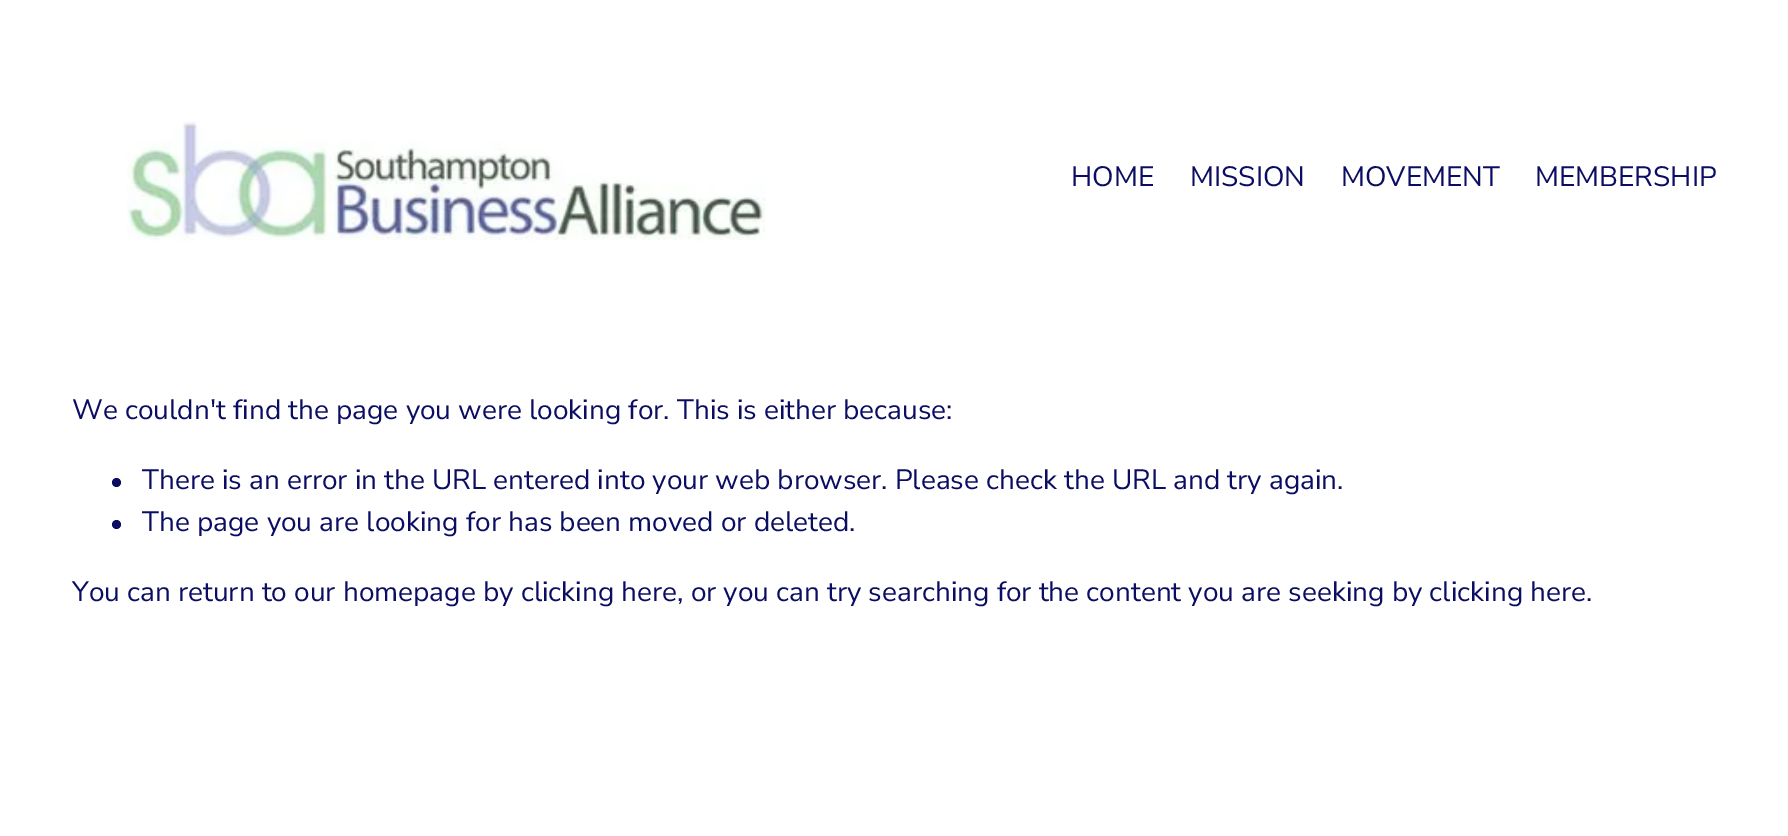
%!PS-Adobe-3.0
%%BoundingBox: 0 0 1788 836
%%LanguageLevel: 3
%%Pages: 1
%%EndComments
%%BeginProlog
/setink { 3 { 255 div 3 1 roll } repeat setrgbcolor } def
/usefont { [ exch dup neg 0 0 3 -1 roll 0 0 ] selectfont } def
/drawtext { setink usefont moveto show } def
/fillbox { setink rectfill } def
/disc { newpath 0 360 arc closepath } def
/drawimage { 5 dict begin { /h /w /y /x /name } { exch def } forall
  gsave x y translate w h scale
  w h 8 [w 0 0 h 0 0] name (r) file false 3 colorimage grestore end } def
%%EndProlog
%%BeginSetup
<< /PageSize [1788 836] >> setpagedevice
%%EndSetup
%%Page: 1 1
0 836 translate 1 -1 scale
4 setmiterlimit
0 0 1788 836 255 255 255 fillbox
(assets/img1.rgb) 127 121 639 120 drawimage
(HOME) 1071 186 /NunitoSans-Regular 28 11 13 99 drawtext
(MISSION) 1190 186 /NunitoSans-Regular 28 11 13 99 drawtext
(MOVEMENT) 1341 186 /NunitoSans-Regular 28 11 13 99 drawtext
(MEMBERSHIP) 1535 186 /NunitoSans-Regular 28 11 13 99 drawtext
(We couldn't find the page you were looking for. This is either because:) 72 419 /NunitoSans-Regular 28 11 13 99 drawtext
116.5 482.5 4.5 disc fill
(There is an error in the URL entered into your web browser. Please check the URL and try again.) 142 489 /NunitoSans-Regular 28 11 13 99 drawtext
116.5 524.5 4.5 disc fill
(The page you are looking for has been moved or deleted.) 142 531 /NunitoSans-Regular 28 11 13 99 drawtext
(You can return to our homepage by clicking here, or you can try searching for the content you are seeking by clicking here.) 72 601 /NunitoSans-Regular 28 11 13 99 drawtext
showpage
%%EOF
